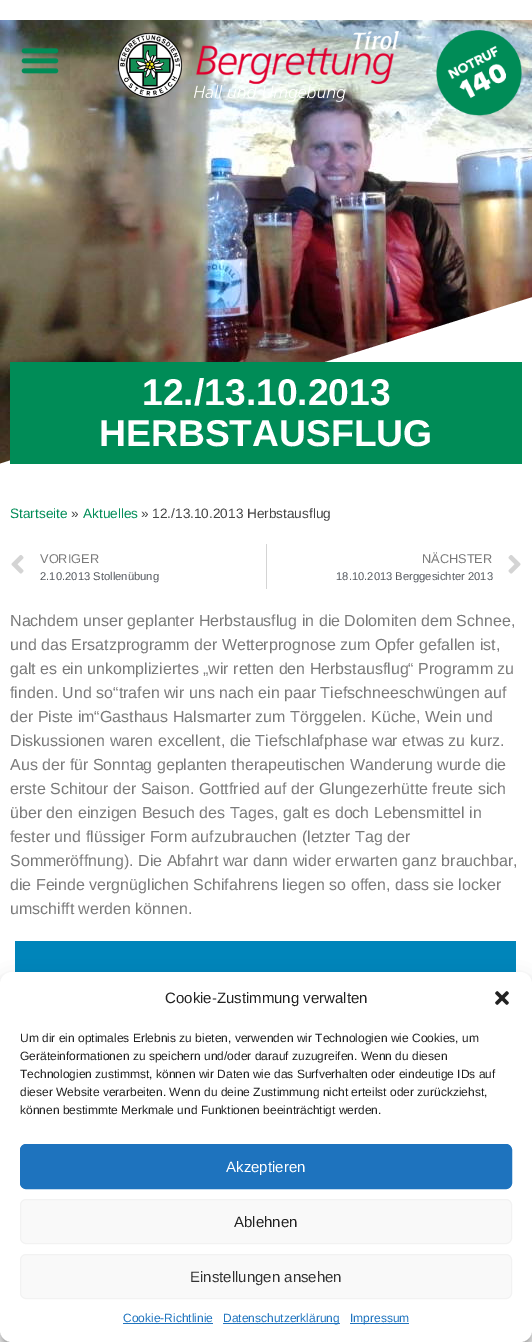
%!PS-Adobe-3.0
%%BoundingBox: 0 0 532 1342
%%LanguageLevel: 3
%%Pages: 1
%%EndComments
%%BeginProlog
/setink { 3 { 255 div 3 1 roll } repeat setrgbcolor } def
/usefont { [ exch dup neg 0 0 3 -1 roll 0 0 ] selectfont } def
/drawtext { setink usefont moveto show } def
/fillbox { setink rectfill } def
/setalpha { dup .setfillconstantalpha .setstrokeconstantalpha } def
/rrect { 5 dict begin { /r /h /w /y /x } { exch def } forall
  x r add y moveto x w add y 2 copy h add r arct x w add y h add x 1 index r arct
  x y h add x y r arct x y 2 copy exch w add exch r arct closepath end } def
/softshadow { 12 dict begin { /a /b /q /h /w /y /x } { exch def } forall gsave /was 0 def
  9 -2 -9 { dup b mul 4 div /e exch def 1 sub .425 mul 2.718 exch exp 1 add a .99 .min exch div /now exch def
    1 1 now sub 1 was sub div sub setalpha /was now def
    w h .min e 2 mul add 0 gt { x e sub y e sub w e 2 mul add h e 2 mul add
      q e add b .6 mul add w h .min 2 div e add .min 0 .max rrect fill } if } for grestore end } def
/drawimage { 5 dict begin { /h /w /y /x /name } { exch def } forall
  gsave x y translate w h scale
  w h 8 [w 0 0 h 0 0] name (r) file false 3 colorimage grestore end } def
%%EndProlog
%%BeginSetup
<< /PageSize [532 1342] /PageUsesTransparency true >> setpagedevice
%%EndSetup
%%Page: 1 1
0 .pushpdf14devicefilter
0 1342 translate 1 -1 scale
4 setmiterlimit
0 0 532 1342 255 255 255 fillbox
(assets/img1.rgb) 0 20 532 444 drawimage
-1 464 moveto -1 475 lineto 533 475 lineto 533 297 lineto closepath fill
0.05 setalpha
10 30 60 60 0 0 0 fillbox
1 setalpha
(assets/img2.rgb) 21 48 38 26 drawimage
(assets/img3.rgb) 117 30 283 72 drawimage
(assets/img4.rgb) 436 30 86 86 drawimage
10 362 512 102 0 140 87 fillbox
(12./13.10.2013) 142 405 /LiberationSans-Bold 37.25 255 255 255 drawtext
(HERBSTAUSFLUG) 99 446 /LiberationSans-Bold 37.25 255 255 255 drawtext
(Startseite) 10 518 /LiberationSans-Regular 13.6 0 140 87 drawtext
(») 71 518 /LiberationSans-Regular 13.6 68 68 68 drawtext
(Aktuelles) 83 518 /LiberationSans-Regular 13.6 0 140 87 drawtext
(» 12./13.10.2013 Herbstausflug) 141 518 /LiberationSans-Regular 13.6 68 68 68 drawtext
(assets/img5.rgb) 11 555 13 19 drawimage
(VORIGER) 40 563 /LiberationSans-Regular 12.75 122 122 122 drawtext
(2.10.2013 Stollenübung) 40 580 /LiberationSans-Regular 11.25 84 89 95 drawtext
266 544 1 45 212 212 212 fillbox
(NÄCHSTER) 422 563 /LiberationSans-Regular 12.75 122 122 122 drawtext
(18.10.2013 Berggesichter 2013) 336 580 /LiberationSans-Regular 11.25 84 89 95 drawtext
(assets/img6.rgb) 508 555 13 19 drawimage
(Nachdem unser geplanter Herbstausflug in die Dolomiten dem Schnee,) 10 626 /LiberationSans-Regular 16 122 122 122 drawtext
(und das Ersatzprogramm der Wetterprognose zum Opfer gefallen ist,) 10 650 /LiberationSans-Regular 16 122 122 122 drawtext
(galt es ein unkompliziertes „wir retten den Herbstausflug“ Programm zu) 10 674 /LiberationSans-Regular 16 122 122 122 drawtext
(finden. Und so“trafen wir uns nach ein paar Tiefschneeschwüngen auf) 10 698 /LiberationSans-Regular 16 122 122 122 drawtext
(der Piste im“Gasthaus Halsmarter zum Törggelen. Küche, Wein und) 10 722 /LiberationSans-Regular 16 122 122 122 drawtext
(Diskussionen waren excellent, die Tiefschlafphase war etwas zu kurz.) 10 746 /LiberationSans-Regular 16 122 122 122 drawtext
(Aus der für Sonntag geplanten therapeutischen Wanderung wurde die) 10 770 /LiberationSans-Regular 16 122 122 122 drawtext
(erste Schitour der Saison. Gottfried auf der Glungezerhütte freute sich) 10 794 /LiberationSans-Regular 16 122 122 122 drawtext
(über den einzigen Besuch des Tages, galt es doch Lebensmittel in) 10 818 /LiberationSans-Regular 16 122 122 122 drawtext
(fester und flüssiger Form aufzubrauchen \(letzter Tag der) 10 842 /LiberationSans-Regular 16 122 122 122 drawtext
(Sommeröffnung\). Die Abfahrt war dann wider erwarten ganz brauchbar,) 10 866 /LiberationSans-Regular 16 122 122 122 drawtext
(die Feinde vergnüglichen Schifahrens liegen so offen, dass sie locker) 10 890 /LiberationSans-Regular 16 122 122 122 drawtext
(umschifft werden können.) 10 914 /LiberationSans-Regular 16 122 122 122 drawtext
15 941 501 31 0 133 186 fillbox
0 0 0 setink
0 978 532 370 12 3 0.23 softshadow
0 982 532 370 12 10 0.19 softshadow
255 255 255 setink
0 972 532 370 12 rrect fill
(Cookie-Zustimmung verwalten) 165 1003 /LiberationSans-Regular 15 34 34 34 drawtext
(assets/img7.rgb) 495 991 14 14 drawimage
(Um dir ein optimales Erlebnis zu bieten, verwenden wir Technologien wie Cookies, um) 20 1042 /LiberationSans-Regular 12 34 34 34 drawtext
(Geräteinformationen zu speichern und/oder darauf zuzugreifen. Wenn du diesen) 20 1060 /LiberationSans-Regular 12 34 34 34 drawtext
(Technologien zustimmst, können wir Daten wie das Surfverhalten oder eindeutige IDs auf) 20 1078 /LiberationSans-Regular 12 34 34 34 drawtext
(dieser Website verarbeiten. Wenn du deine Zustimmung nicht erteilst oder zurückziehst,) 20 1096 /LiberationSans-Regular 12 34 34 34 drawtext
(können bestimmte Merkmale und Funktionen beeinträchtigt werden.) 20 1114 /LiberationSans-Regular 12 34 34 34 drawtext
30 115 190 setink
20.5 1144.5 491 44 5.5 rrect gsave fill grestore
stroke
(Akzeptieren) 226 1172 /LiberationSans-Regular 15 255 255 255 drawtext
249 249 249 setink
20.5 1199.5 491 44 5.5 rrect gsave fill grestore
242 242 242 setink
stroke
(Ablehnen) 234 1227 /LiberationSans-Regular 15 34 34 34 drawtext
249 249 249 setink
20.5 1254.5 491 44 5.5 rrect gsave fill grestore
242 242 242 setink
stroke
(Einstellungen ansehen) 190 1282 /LiberationSans-Regular 15 51 51 51 drawtext
(Cookie-Richtlinie) 123 1322 /LiberationSans-Regular 12 30 115 190 drawtext
123 1323 90 1 30 115 190 fillbox
223 1323 117 1 30 115 190 fillbox
(Datenschutzerklärung) 223 1322 /LiberationSans-Regular 12 30 115 190 drawtext
350 1323 59 1 30 115 190 fillbox
(Impressum) 350 1322 /LiberationSans-Regular 12 30 115 190 drawtext
.poppdf14devicefilter showpage
%%EOF
